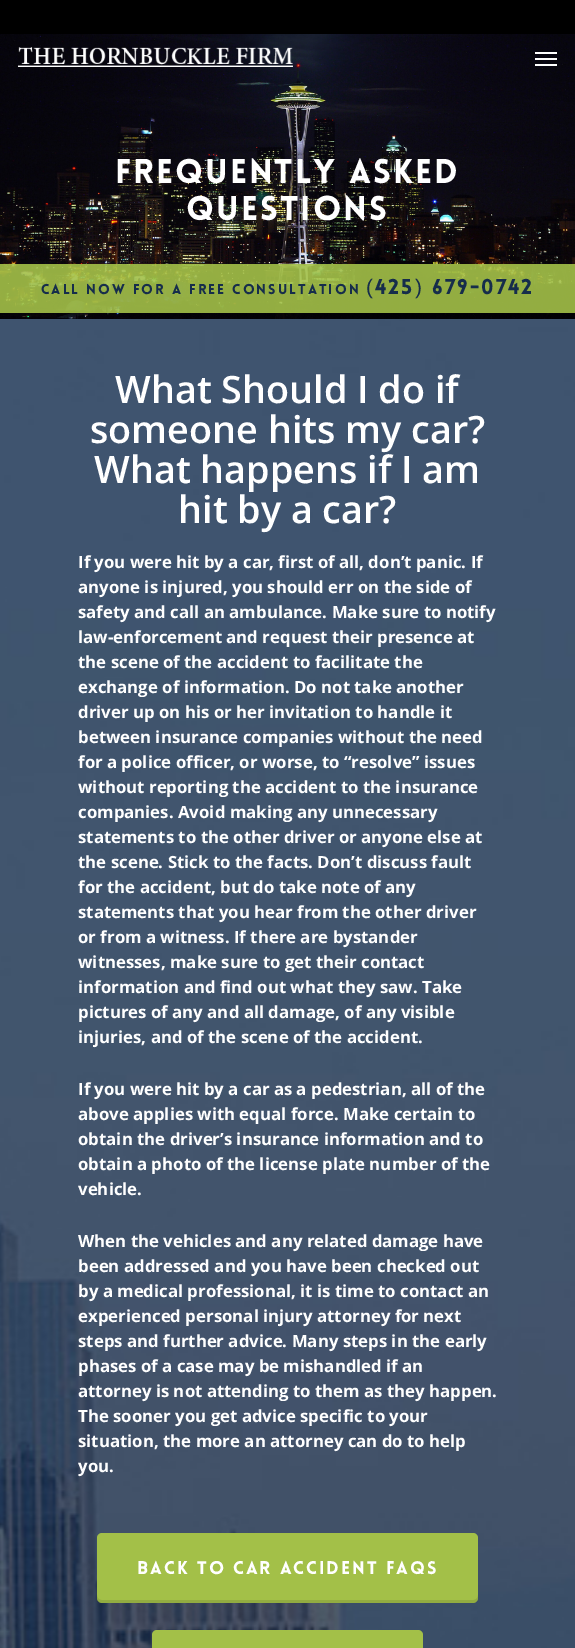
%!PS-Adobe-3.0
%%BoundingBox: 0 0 575 1648
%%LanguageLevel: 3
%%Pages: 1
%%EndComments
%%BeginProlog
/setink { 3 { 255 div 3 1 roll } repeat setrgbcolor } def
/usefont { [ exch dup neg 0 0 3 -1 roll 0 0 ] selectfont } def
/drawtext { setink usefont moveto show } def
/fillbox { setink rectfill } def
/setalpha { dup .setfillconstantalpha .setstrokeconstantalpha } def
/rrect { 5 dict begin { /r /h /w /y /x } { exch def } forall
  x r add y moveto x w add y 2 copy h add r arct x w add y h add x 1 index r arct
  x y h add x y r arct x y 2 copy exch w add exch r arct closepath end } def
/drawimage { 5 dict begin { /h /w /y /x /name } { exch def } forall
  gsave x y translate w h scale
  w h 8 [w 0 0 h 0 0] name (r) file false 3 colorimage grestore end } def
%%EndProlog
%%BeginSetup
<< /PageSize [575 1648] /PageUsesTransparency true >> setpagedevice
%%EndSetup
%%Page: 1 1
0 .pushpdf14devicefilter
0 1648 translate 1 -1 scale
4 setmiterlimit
0 0 575 1648 255 255 255 fillbox
0 0 575 34 0 0 0 fillbox
(assets/img2.rgb) 0 34 575 285 drawimage
(assets/img1.rgb) 18 47 275 20 drawimage
535 52 22 2 255 255 255 fillbox
535 64 22 2 255 255 255 fillbox
535 58 22 2 255 255 255 fillbox
/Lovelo-Black 33.75 usefont
115 183 moveto 2 0 (FREQUENTLY ASKED) ashow
186 220 moveto 2 0 (QUESTIONS) ashow
0.9 setalpha
0 264 575 49 163 192 72 fillbox
/Lovelo-Black 14 usefont
1 setalpha
22 45 75 setink
41 294 moveto 2 0 (CALL NOW FOR A FREE CONSULTATION) ashow
/LiberationSans-Regular 21 usefont
366 294 moveto 2 0 (\() ashow
/Lovelo-Black 21 usefont
375 294 moveto 2 0 (425) ashow
/LiberationSans-Regular 21 usefont
415 294 moveto 2 0 (\)) ashow
/Lovelo-Black 21 usefont
432 294 moveto 2 0 (679-0742) ashow
(assets/img3.rgb) 0 319 575 1329 drawimage
(What Should I do if) 115 403 /OpenSans-SemiBold 37.75 255 255 255 drawtext
(someone hits my car?) 90 443 /OpenSans-SemiBold 37.75 255 255 255 drawtext
(What happens if I am) 94 483 /OpenSans-SemiBold 37.75 255 255 255 drawtext
(hit by a car?) 178 523 /OpenSans-SemiBold 37.75 255 255 255 drawtext
(If you were hit by a car, first of all, don’t panic. If) 78 568 /OpenSans-Bold 16.8 255 255 255 drawtext
(anyone is injured, you should err on the side of) 78 593 /OpenSans-Bold 16.8 255 255 255 drawtext
(safety and call an ambulance. Make sure to notify) 78 618 /OpenSans-Bold 16.8 255 255 255 drawtext
(law-enforcement and request their presence at) 78 643 /OpenSans-Bold 16.8 255 255 255 drawtext
(the scene of the accident to facilitate the) 78 668 /OpenSans-Bold 16.8 255 255 255 drawtext
(exchange of information. Do not take another) 78 693 /OpenSans-Bold 16.8 255 255 255 drawtext
(driver up on his or her invitation to handle it) 78 718 /OpenSans-Bold 16.8 255 255 255 drawtext
(between insurance companies without the need) 78 743 /OpenSans-Bold 16.8 255 255 255 drawtext
(for a police officer, or worse, to “resolve” issues) 78 768 /OpenSans-Bold 16.8 255 255 255 drawtext
(without reporting the accident to the insurance) 78 793 /OpenSans-Bold 16.8 255 255 255 drawtext
(companies. Avoid making any unnecessary) 78 818 /OpenSans-Bold 16.8 255 255 255 drawtext
(statements to the other driver or anyone else at) 78 843 /OpenSans-Bold 16.8 255 255 255 drawtext
(the scene. Stick to the facts. Don’t discuss fault) 78 868 /OpenSans-Bold 16.8 255 255 255 drawtext
(for the accident, but do take note of any) 78 893 /OpenSans-Bold 16.8 255 255 255 drawtext
(statements that you hear from the other driver) 78 918 /OpenSans-Bold 16.8 255 255 255 drawtext
(or from a witness. If there are bystander) 78 943 /OpenSans-Bold 16.8 255 255 255 drawtext
(witnesses, make sure to get their contact) 78 968 /OpenSans-Bold 16.8 255 255 255 drawtext
(information and find out what they saw. Take) 78 993 /OpenSans-Bold 16.8 255 255 255 drawtext
(pictures of any and all damage, of any visible) 78 1018 /OpenSans-Bold 16.8 255 255 255 drawtext
(injuries, and of the scene of the accident.) 78 1043 /OpenSans-Bold 16.8 255 255 255 drawtext
(If you were hit by a car as a pedestrian, all of the) 78 1095 /OpenSans-Bold 16.8 255 255 255 drawtext
(above applies with equal force. Make certain to) 78 1120 /OpenSans-Bold 16.8 255 255 255 drawtext
(obtain the driver’s insurance information and to) 78 1145 /OpenSans-Bold 16.8 255 255 255 drawtext
(obtain a photo of the license plate number of the) 78 1170 /OpenSans-Bold 16.8 255 255 255 drawtext
(vehicle.) 78 1195 /OpenSans-Bold 16.8 255 255 255 drawtext
(When the vehicles and any related damage have) 78 1247 /OpenSans-Bold 16.8 255 255 255 drawtext
(been addressed and you have been checked out) 78 1272 /OpenSans-Bold 16.8 255 255 255 drawtext
(by a medical professional, it is time to contact an) 78 1297 /OpenSans-Bold 16.8 255 255 255 drawtext
(experienced personal injury attorney for next) 78 1322 /OpenSans-Bold 16.8 255 255 255 drawtext
(steps and further advice. Many steps in the early) 78 1347 /OpenSans-Bold 16.8 255 255 255 drawtext
(phases of a case may be mishandled if an) 78 1372 /OpenSans-Bold 16.8 255 255 255 drawtext
(attorney is not attending to them as they happen.) 78 1397 /OpenSans-Bold 16.8 255 255 255 drawtext
(The sooner you get advice specific to your) 78 1422 /OpenSans-Bold 16.8 255 255 255 drawtext
(situation, the more an attorney can do to help) 78 1447 /OpenSans-Bold 16.8 255 255 255 drawtext
(you.) 78 1472 /OpenSans-Bold 16.8 255 255 255 drawtext
163 192 72 setink
97 1533 381 70 5 rrect fill
0.1 setalpha
0 0 0 setink
97 1595 moveto 97 1599 97 1603 102 1603 curveto 473 1603 lineto 478 1603 478 1599 478 1595 curveto 478 1598 476 1600 473 1600 curveto 102 1600 lineto 99 1600 97 1598 97 1595 curveto closepath fill
/Lovelo-Black 18 usefont
1 setalpha
255 255 255 setink
137 1574 moveto 2 0 (Back To Car Accident FAQs) ashow
163 192 72 setink
152 1630 271 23 5 rrect fill
.poppdf14devicefilter showpage
%%EOF
